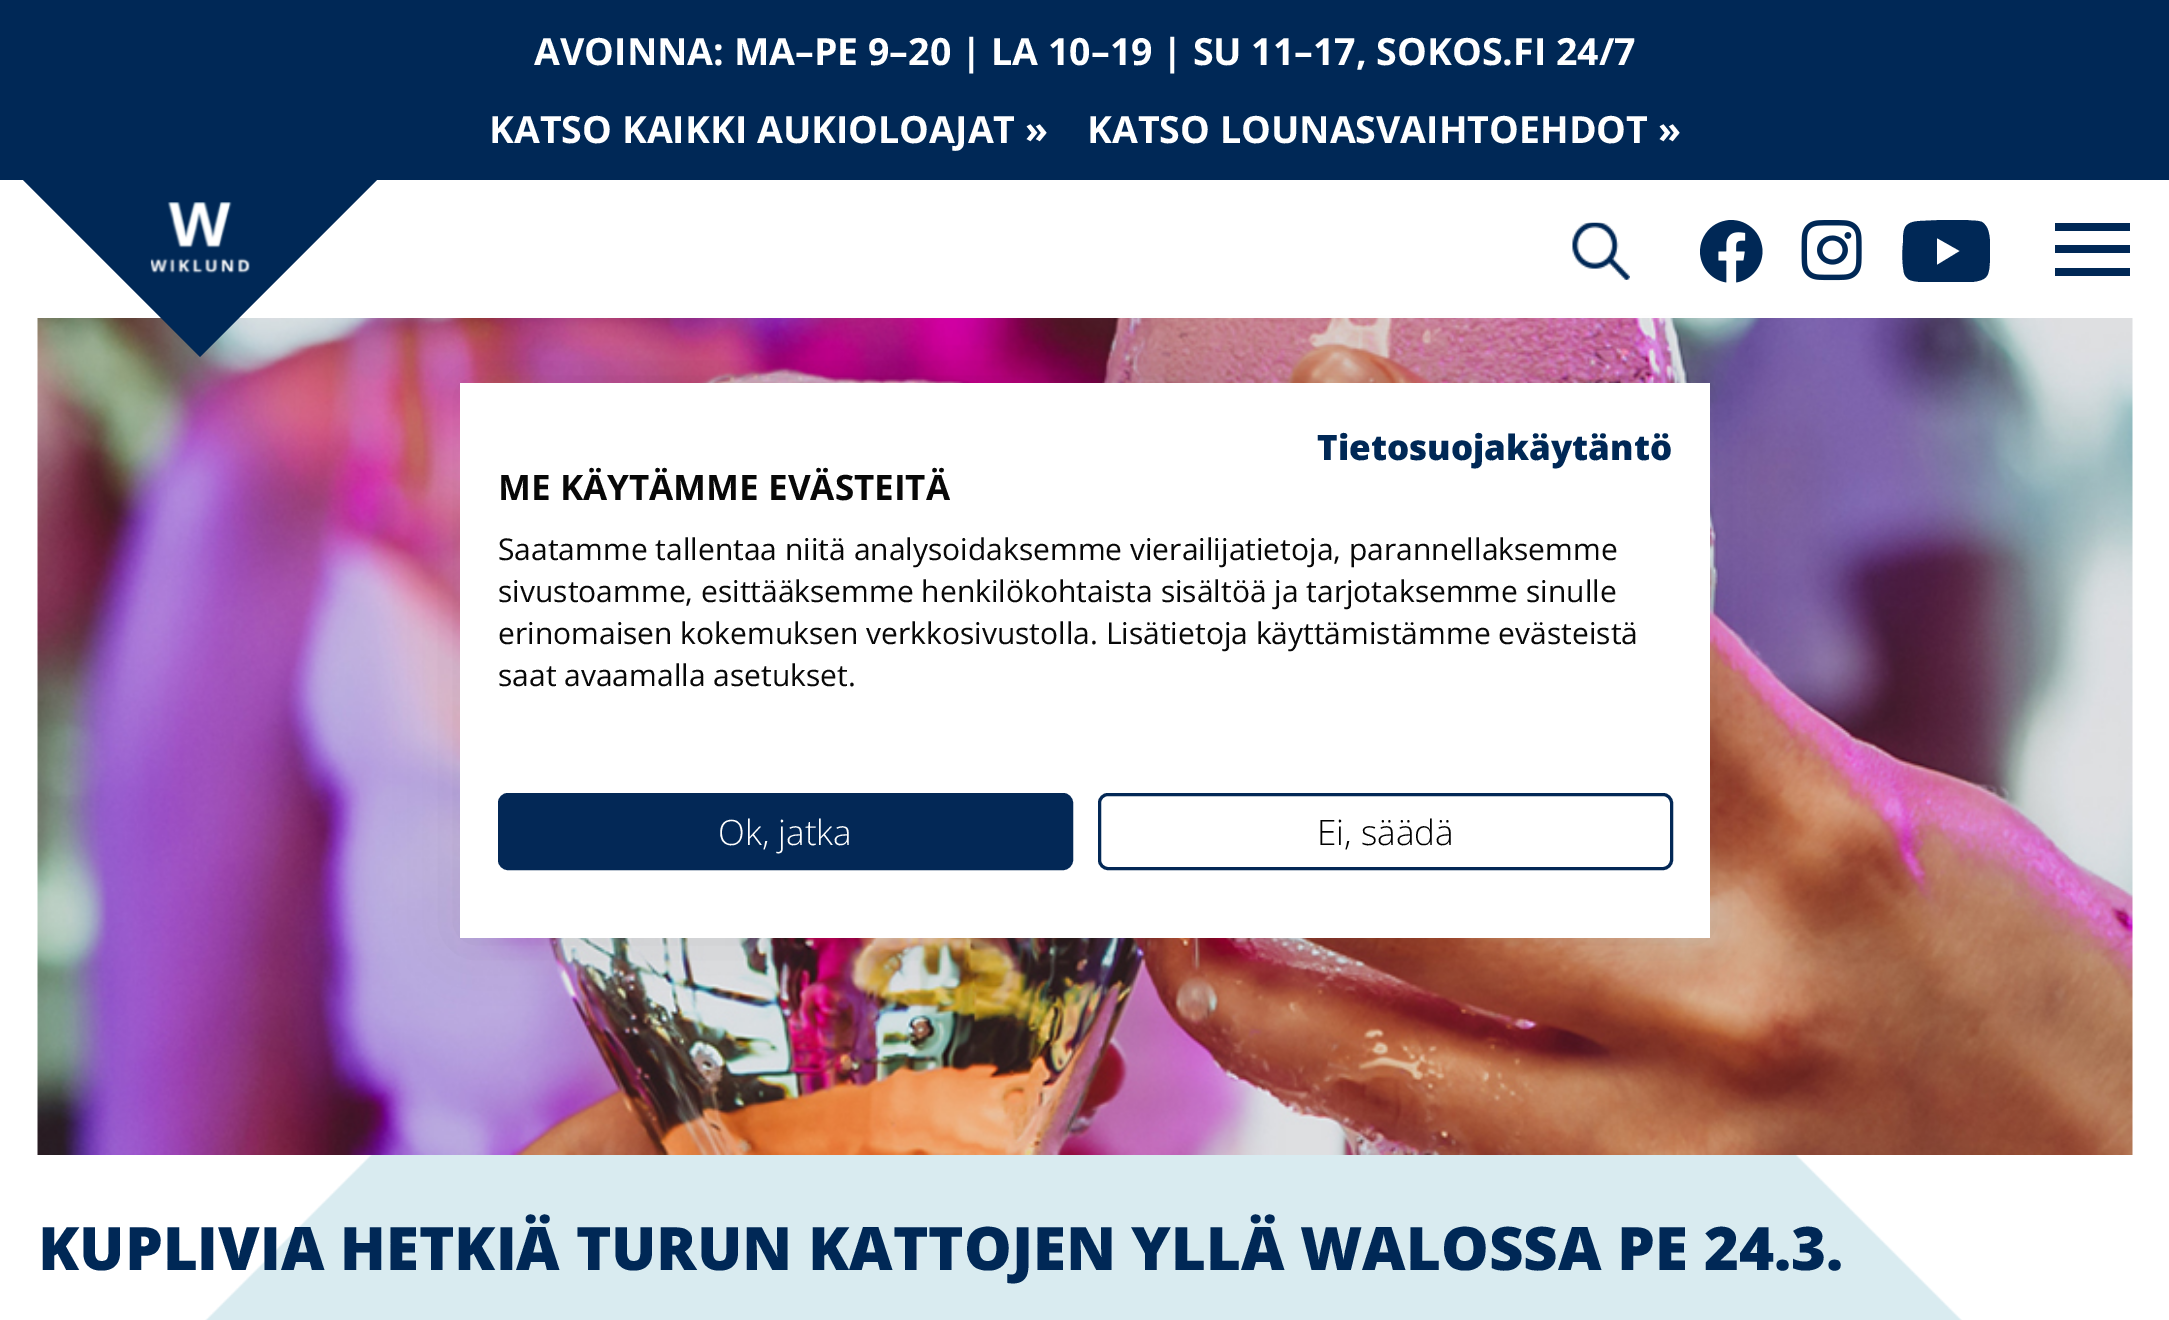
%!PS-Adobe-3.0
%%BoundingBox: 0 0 2169 1320
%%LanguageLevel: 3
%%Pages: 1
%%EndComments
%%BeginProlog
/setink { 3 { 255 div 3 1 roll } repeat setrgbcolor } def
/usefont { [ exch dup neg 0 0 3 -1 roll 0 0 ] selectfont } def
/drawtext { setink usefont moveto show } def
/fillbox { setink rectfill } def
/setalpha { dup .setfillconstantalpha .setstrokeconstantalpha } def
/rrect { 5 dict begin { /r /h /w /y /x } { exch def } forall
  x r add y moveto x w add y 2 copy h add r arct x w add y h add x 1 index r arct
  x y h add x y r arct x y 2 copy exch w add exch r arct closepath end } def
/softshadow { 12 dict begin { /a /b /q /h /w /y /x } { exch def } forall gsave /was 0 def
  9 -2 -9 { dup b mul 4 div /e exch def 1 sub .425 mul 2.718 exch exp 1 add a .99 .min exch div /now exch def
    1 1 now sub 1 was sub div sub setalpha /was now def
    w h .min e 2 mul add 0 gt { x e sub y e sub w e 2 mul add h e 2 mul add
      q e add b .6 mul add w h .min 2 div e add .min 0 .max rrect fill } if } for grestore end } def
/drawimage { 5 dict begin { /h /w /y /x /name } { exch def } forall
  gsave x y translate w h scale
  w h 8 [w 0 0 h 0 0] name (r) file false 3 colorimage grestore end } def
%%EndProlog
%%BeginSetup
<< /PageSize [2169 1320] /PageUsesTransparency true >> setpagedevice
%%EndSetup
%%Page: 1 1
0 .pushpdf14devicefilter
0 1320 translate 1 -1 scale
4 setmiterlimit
0 0 2169 1320 255 255 255 fillbox
(assets/img6.rgb) 37 318 2096 837 drawimage
0 40 86 setink
200 3 moveto 377 180 lineto 200 357 lineto 23 180 lineto closepath fill
(assets/img1.rgb) 150 202 100 72 drawimage
(assets/img2.rgb) 1572 222 58 58 drawimage
(assets/img3.rgb) 1700 220 63 63 drawimage
(assets/img4.rgb) 1801 220 61 61 drawimage
gsave
1900 220 90 63 rectclip
1988 230 moveto 1987 227 1985 224 1982 222 curveto 1977 220 1971 221 1967 220 curveto 1942 220 lineto 1920 221 lineto 1904 222 1903 228 1903 243 curveto 1902 253 1902 263 1904 273 curveto 1905 276 1907 279 1910 280 curveto 1915 282 1921 282 1926 282 curveto 1947 282 lineto 1972 282 lineto 1989 280 1989 275 1990 259 curveto 1990 250 1991 239 1988 230 curveto closepath 1937 265 moveto 1937 238 lineto 1960 251 lineto closepath fill
grestore
2055 223 75 8 0 40 86 fillbox
2055 245 75 8 0 40 86 fillbox
2055 268 75 8 0 40 86 fillbox
0 0 2169 180 0 40 86 fillbox
(AVOINNA: MA–PE 9–20 | LA 10–19 | SU 11–17, SOKOS.FI 24/7) 534 65 /OpenSans-Bold 37.5 255 255 255 drawtext
(KATSO KAIKKI AUKIOLOAJAT ») 489 143 /OpenSans-Bold 37.5 255 255 255 drawtext
(KATSO LOUNASVAIHTOEHDOT ») 1087 143 /OpenSans-Bold 37.5 255 255 255 drawtext
(assets/img5.rgb) 205 1155 1757 165 drawimage
(KUPLIVIA HETKIÄ TURUN KATTOJEN YLLÄ WALOSSA PE 24.3.) 38 1270 /OpenSans-ExtraBold 60 0 40 86 drawtext
0 0 0 setink
460 383 1250 555 0 30 0.1 softshadow
460 383 1250 555 255 255 255 fillbox
(Tietosuojakäytäntö) 1317 460 /OpenSans-ExtraBold 35 0 40 86 drawtext
(ME KÄYTÄMME EVÄSTEITÄ) 498 500 /OpenSans-Bold 35 8 8 8 drawtext
(Saatamme tallentaa niitä analysoidaksemme vierailijatietoja, parannellaksemme) 498 560 /OpenSans-Regular 30 8 8 8 drawtext
(sivustoamme, esittääksemme henkilökohtaista sisältöä ja tarjotaksemme sinulle) 498 602 /OpenSans-Regular 30 8 8 8 drawtext
(erinomaisen kokemuksen verkkosivustolla. Lisätietoja käyttämistämme evästeistä) 498 644 /OpenSans-Regular 30 8 8 8 drawtext
(saat avaamalla asetukset.) 498 686 /OpenSans-Regular 30 8 8 8 drawtext
3 40 86 setink
499.5 794.5 572 74 8.5 rrect gsave fill grestore
3 setlinewidth
stroke
(Ok, jatka) 718 845 /OpenSans-Light 35 255 255 255 drawtext
3 40 86 setink
1099.5 794.5 572 74 8.5 rrect stroke
(Ei, säädä) 1317 845 /OpenSans-Light 35 0 0 0 drawtext
.poppdf14devicefilter showpage
%%EOF
